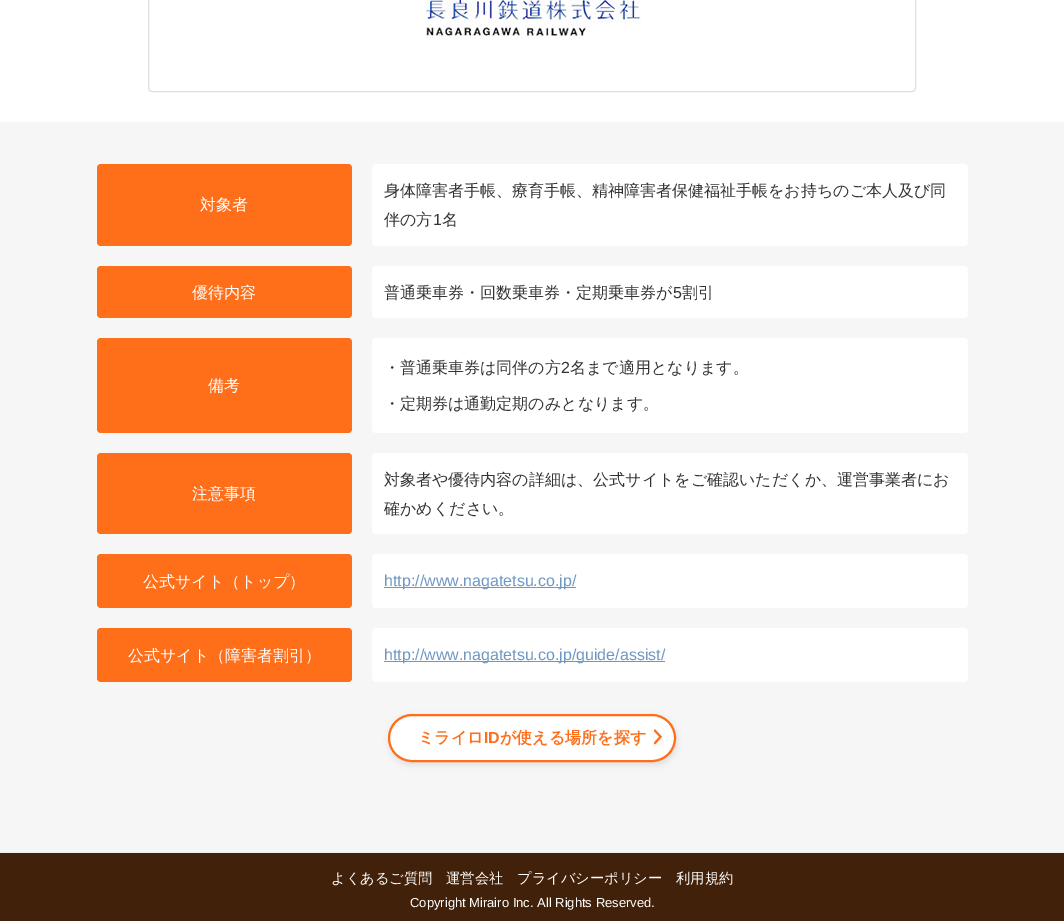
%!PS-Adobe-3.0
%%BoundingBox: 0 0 1064 921
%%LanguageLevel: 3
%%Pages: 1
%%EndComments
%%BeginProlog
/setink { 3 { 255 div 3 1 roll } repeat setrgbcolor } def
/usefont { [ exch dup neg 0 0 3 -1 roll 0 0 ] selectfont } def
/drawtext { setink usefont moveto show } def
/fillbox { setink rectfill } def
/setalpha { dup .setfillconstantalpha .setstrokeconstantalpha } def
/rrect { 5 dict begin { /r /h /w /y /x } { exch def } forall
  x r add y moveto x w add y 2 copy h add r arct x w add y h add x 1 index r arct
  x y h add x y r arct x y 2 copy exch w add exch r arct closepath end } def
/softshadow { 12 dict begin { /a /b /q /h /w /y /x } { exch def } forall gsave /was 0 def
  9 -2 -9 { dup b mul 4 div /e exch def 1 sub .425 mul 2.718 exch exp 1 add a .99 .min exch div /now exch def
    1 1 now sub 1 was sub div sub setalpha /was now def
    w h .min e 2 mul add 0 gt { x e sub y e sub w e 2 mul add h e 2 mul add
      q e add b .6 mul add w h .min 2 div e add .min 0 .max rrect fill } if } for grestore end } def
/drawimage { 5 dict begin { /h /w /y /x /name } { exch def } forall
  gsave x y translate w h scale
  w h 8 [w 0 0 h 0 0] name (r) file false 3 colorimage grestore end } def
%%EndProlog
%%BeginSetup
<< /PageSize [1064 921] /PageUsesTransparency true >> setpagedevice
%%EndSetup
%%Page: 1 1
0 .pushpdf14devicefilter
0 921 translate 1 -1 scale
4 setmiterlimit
0 0 1064 921 255 255 255 fillbox
223 223 223 setink
148.5 -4.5 767 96 3.5 rrect stroke
(assets/img1.rgb) 425 0 216 39 drawimage
0 122 1064 730 246 246 246 fillbox
255 110 25 setink
97 164 255 82 4 rrect fill
(対象者) 200 210 /WenQuanYiZenHei-Medium 16 255 255 255 drawtext
372 164 596 82 4 rrect fill
(身体障害者手帳、療育手帳、精神障害者保健福祉手帳をお持ちのご本人及び同) 384 196 /WenQuanYiZenHei-Medium 16 51 51 51 drawtext
(伴の方) 384 225 /WenQuanYiZenHei-Medium 16 51 51 51 drawtext
(1) 433 225 /LiberationSans-Regular 16 51 51 51 drawtext
(名) 442 225 /WenQuanYiZenHei-Medium 16 51 51 51 drawtext
255 110 25 setink
97 266 255 52 4 rrect fill
(優待内容) 192 298 /WenQuanYiZenHei-Medium 16 255 255 255 drawtext
372 266 596 52 4 rrect fill
(普通乗車券・回数乗車券・定期乗車券が) 384 298 /WenQuanYiZenHei-Medium 16 51 51 51 drawtext
(5) 673 298 /LiberationSans-Regular 16 51 51 51 drawtext
(割引) 682 298 /WenQuanYiZenHei-Medium 16 51 51 51 drawtext
255 110 25 setink
97 338 255 95 4 rrect fill
(備考) 208 391 /WenQuanYiZenHei-Medium 16 255 255 255 drawtext
372 338 596 95 4 rrect fill
(・普通乗車券は同伴の方) 384 373 /WenQuanYiZenHei-Medium 16 51 51 51 drawtext
(2) 561 373 /LiberationSans-Regular 16 51 51 51 drawtext
(名まで適用となります。) 570 373 /WenQuanYiZenHei-Medium 16 51 51 51 drawtext
(・定期券は通勤定期のみとなります。) 384 409 /WenQuanYiZenHei-Medium 16 51 51 51 drawtext
255 110 25 setink
97 453 255 81 4 rrect fill
(注意事項) 192 499 /WenQuanYiZenHei-Medium 16 255 255 255 drawtext
372 453 596 81 4 rrect fill
(対象者や優待内容の詳細は、公式サイトをご確認いただくか、運営事業者にお) 384 485 /WenQuanYiZenHei-Medium 16 51 51 51 drawtext
(確かめください。) 384 514 /WenQuanYiZenHei-Medium 16 51 51 51 drawtext
255 110 25 setink
97 554 255 54 4 rrect fill
(公式サイト（トップ）) 143 587 /WenQuanYiZenHei-Medium 16 255 255 255 drawtext
372 554 596 54 4 rrect fill
384 587 192 1 111 151 194 fillbox
(http://www.nagatetsu.co.jp/) 384 586 /LiberationSans-Regular 16 111 151 194 drawtext
255 110 25 setink
97 628 255 54 4 rrect fill
(公式サイト（障害者割引）) 128 661 /WenQuanYiZenHei-Medium 16 255 255 255 drawtext
372 628 596 54 4 rrect fill
384 661 281 1 111 151 194 fillbox
(http://www.nagatetsu.co.jp/guide/assist/) 384 660 /LiberationSans-Regular 16 111 151 194 drawtext
100 100 100 setink
389 717 288 48 24 3 0.16 softshadow
255 255 255 setink
389 715 286 46 23 rrect gsave fill grestore
255 110 25 setink
2 setlinewidth
stroke
(ミライロ) 418 743 /WenQuanYiZenHei-Bold 16 255 110 25 drawtext
(ID) 484 743 /LiberationSans-Bold 16 255 110 25 drawtext
(が使える場所を探す) 500 743 /WenQuanYiZenHei-Bold 16 255 110 25 drawtext
(assets/img2.rgb) 653 729 11 18 drawimage
0 853 1064 68 66 33 11 fillbox
0 852 1064 1 238 238 238 fillbox
(よくあるご質問) 331 883 /WenQuanYiZenHei-Medium 14.25 255 255 255 drawtext
(運営会社) 446 883 /WenQuanYiZenHei-Medium 14.25 255 255 255 drawtext
(プライバシーポリシー) 517 883 /WenQuanYiZenHei-Medium 14.25 255 255 255 drawtext
(利用規約) 676 883 /WenQuanYiZenHei-Medium 14.25 255 255 255 drawtext
(Copyright Mirairo Inc. All Rights Reserved.) 410 907 /LiberationSans-Regular 13 255 255 255 drawtext
.poppdf14devicefilter showpage
%%EOF
